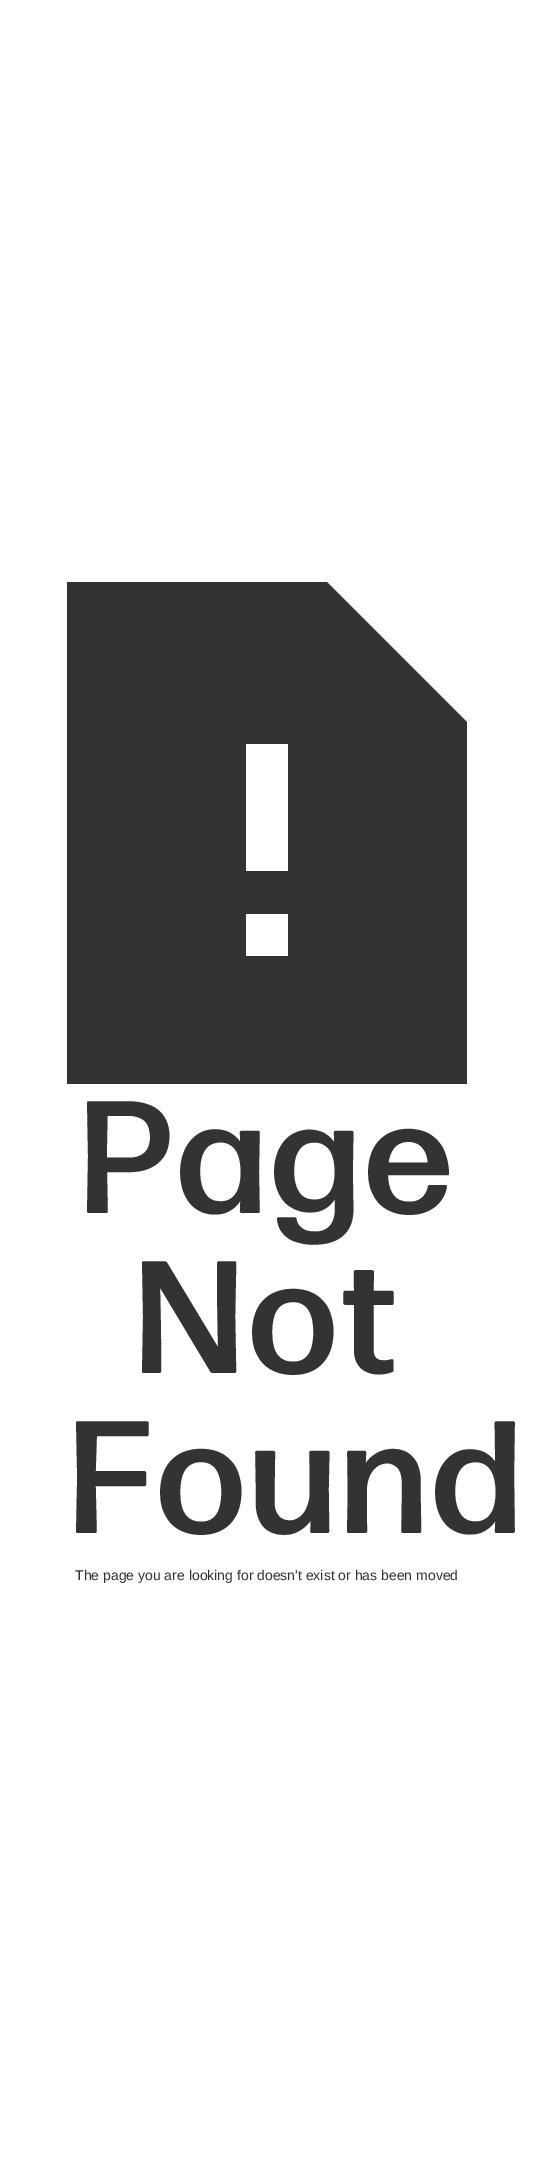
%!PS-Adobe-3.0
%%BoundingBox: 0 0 533 2167
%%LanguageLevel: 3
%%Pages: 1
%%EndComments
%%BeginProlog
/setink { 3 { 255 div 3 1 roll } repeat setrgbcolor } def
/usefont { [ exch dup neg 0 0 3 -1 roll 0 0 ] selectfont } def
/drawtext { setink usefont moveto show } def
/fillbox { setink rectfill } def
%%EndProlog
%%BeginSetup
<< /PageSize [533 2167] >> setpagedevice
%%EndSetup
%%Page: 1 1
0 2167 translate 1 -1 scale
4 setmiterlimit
0 0 533 2167 255 255 255 fillbox
51 51 51 setink
67 582 moveto 327 582 lineto 467 722 lineto 467 1084 lineto 67 1084 lineto closepath 246 744 moveto 288 744 lineto 288 871 lineto 246 871 lineto closepath 246 914 moveto 288 914 lineto 288 956 lineto 246 956 lineto closepath eofill
/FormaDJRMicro-Medium 160 usefont
78 1213 moveto 1.5 0 (Page) ashow
133 1373 moveto 1.5 0 (Not) ashow
67 1533 moveto 1.5 0 (Found) ashow
(The page you are looking for doesn't exist or has been moved) 75 1580 /LiberationSans-Regular 14 51 51 51 drawtext
showpage
%%EOF
